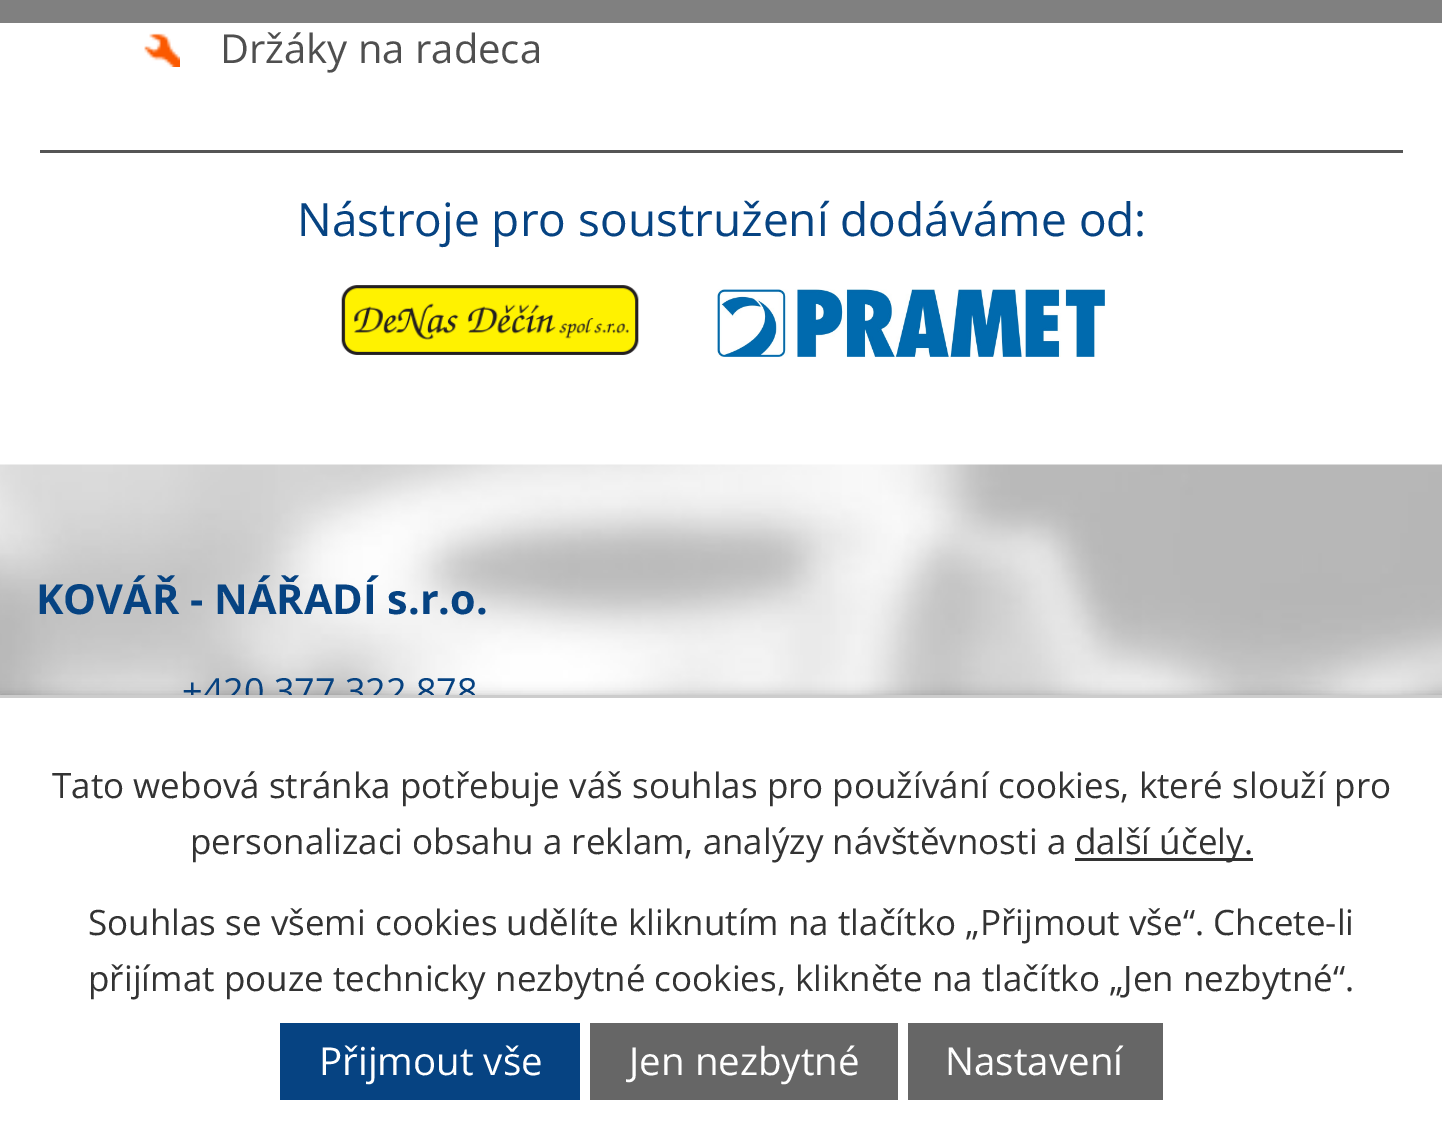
%!PS-Adobe-3.0
%%BoundingBox: 0 0 1442 1123
%%LanguageLevel: 3
%%Pages: 1
%%EndComments
%%BeginProlog
/setink { 3 { 255 div 3 1 roll } repeat setrgbcolor } def
/usefont { [ exch dup neg 0 0 3 -1 roll 0 0 ] selectfont } def
/drawtext { setink usefont moveto show } def
/fillbox { setink rectfill } def
/setalpha { dup .setfillconstantalpha .setstrokeconstantalpha } def
/rrect { 5 dict begin { /r /h /w /y /x } { exch def } forall
  x r add y moveto x w add y 2 copy h add r arct x w add y h add x 1 index r arct
  x y h add x y r arct x y 2 copy exch w add exch r arct closepath end } def
/softshadow { 12 dict begin { /a /b /q /h /w /y /x } { exch def } forall gsave /was 0 def
  9 -2 -9 { dup b mul 4 div /e exch def 1 sub .425 mul 2.718 exch exp 1 add a .99 .min exch div /now exch def
    1 1 now sub 1 was sub div sub setalpha /was now def
    w h .min e 2 mul add 0 gt { x e sub y e sub w e 2 mul add h e 2 mul add
      q e add b .6 mul add w h .min 2 div e add .min 0 .max rrect fill } if } for grestore end } def
/drawimage { 5 dict begin { /h /w /y /x /name } { exch def } forall
  gsave x y translate w h scale
  w h 8 [w 0 0 h 0 0] name (r) file false 3 colorimage grestore end } def
%%EndProlog
%%BeginSetup
<< /PageSize [1442 1123] /PageUsesTransparency true >> setpagedevice
%%EndSetup
%%Page: 1 1
0 .pushpdf14devicefilter
0 1123 translate 1 -1 scale
4 setmiterlimit
0 0 1442 1123 255 255 255 fillbox
(assets/img1.rgb) 144 33 36 34 drawimage
(Držáky na radeca) 220 63 /OpenSans-Regular 40 79 79 79 drawtext
40 150 1363 3 85 85 85 fillbox
(Nástroje pro soustružení dodáváme od:) 297 236 /OpenSans-Regular 46 6 67 130 drawtext
(assets/img2.rgb) 341 285 298 70 drawimage
(assets/img3.rgb) 717 289 388 68 drawimage
(assets/img4.rgb) 0 464 1442 231 drawimage
(KOVÁŘ - NÁŘADÍ s.r.o.) 36 614 /OpenSans-Bold 41.4 6 67 130 drawtext
(+420 377 322 878) 182 704 /OpenSans-Regular 36 6 67 130 drawtext
0 0 1442 23 128 128 128 fillbox
0 0 0 setink
0 695 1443 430 0 6 0.2 softshadow
0 698 1442 425 255 255 255 fillbox
0 695 1442 3 204 204 204 fillbox
(Tato webová stránka potřebuje váš souhlas pro používání cookies, které slouží pro) 52 798 /OpenSans-Regular 35 51 51 51 drawtext
(personalizaci obsahu a reklam, analýzy návštěvnosti a) 190 854 /OpenSans-Regular 35 51 51 51 drawtext
1075 858 178 3 51 51 51 fillbox
(další účely.) 1075 854 /OpenSans-Regular 35 51 51 51 drawtext
(Souhlas se všemi cookies udělíte kliknutím na tlačítko „Přijmout vše“. Chcete-li) 88 935 /OpenSans-Regular 35 51 51 51 drawtext
(přijímat pouze technicky nezbytné cookies, klikněte na tlačítko „Jen nezbytné“.) 88 991 /OpenSans-Regular 35 51 51 51 drawtext
280 1023 300 77 6 67 130 fillbox
(Přijmout vše) 319 1075 /OpenSans-Regular 38.5 255 255 255 drawtext
590 1023 308 77 102 102 102 fillbox
(Jen nezbytné) 629 1075 /OpenSans-Regular 38.5 255 255 255 drawtext
908 1023 255 77 102 102 102 fillbox
(Nastavení) 945 1075 /OpenSans-Regular 38.5 255 255 255 drawtext
.poppdf14devicefilter showpage
%%EOF
